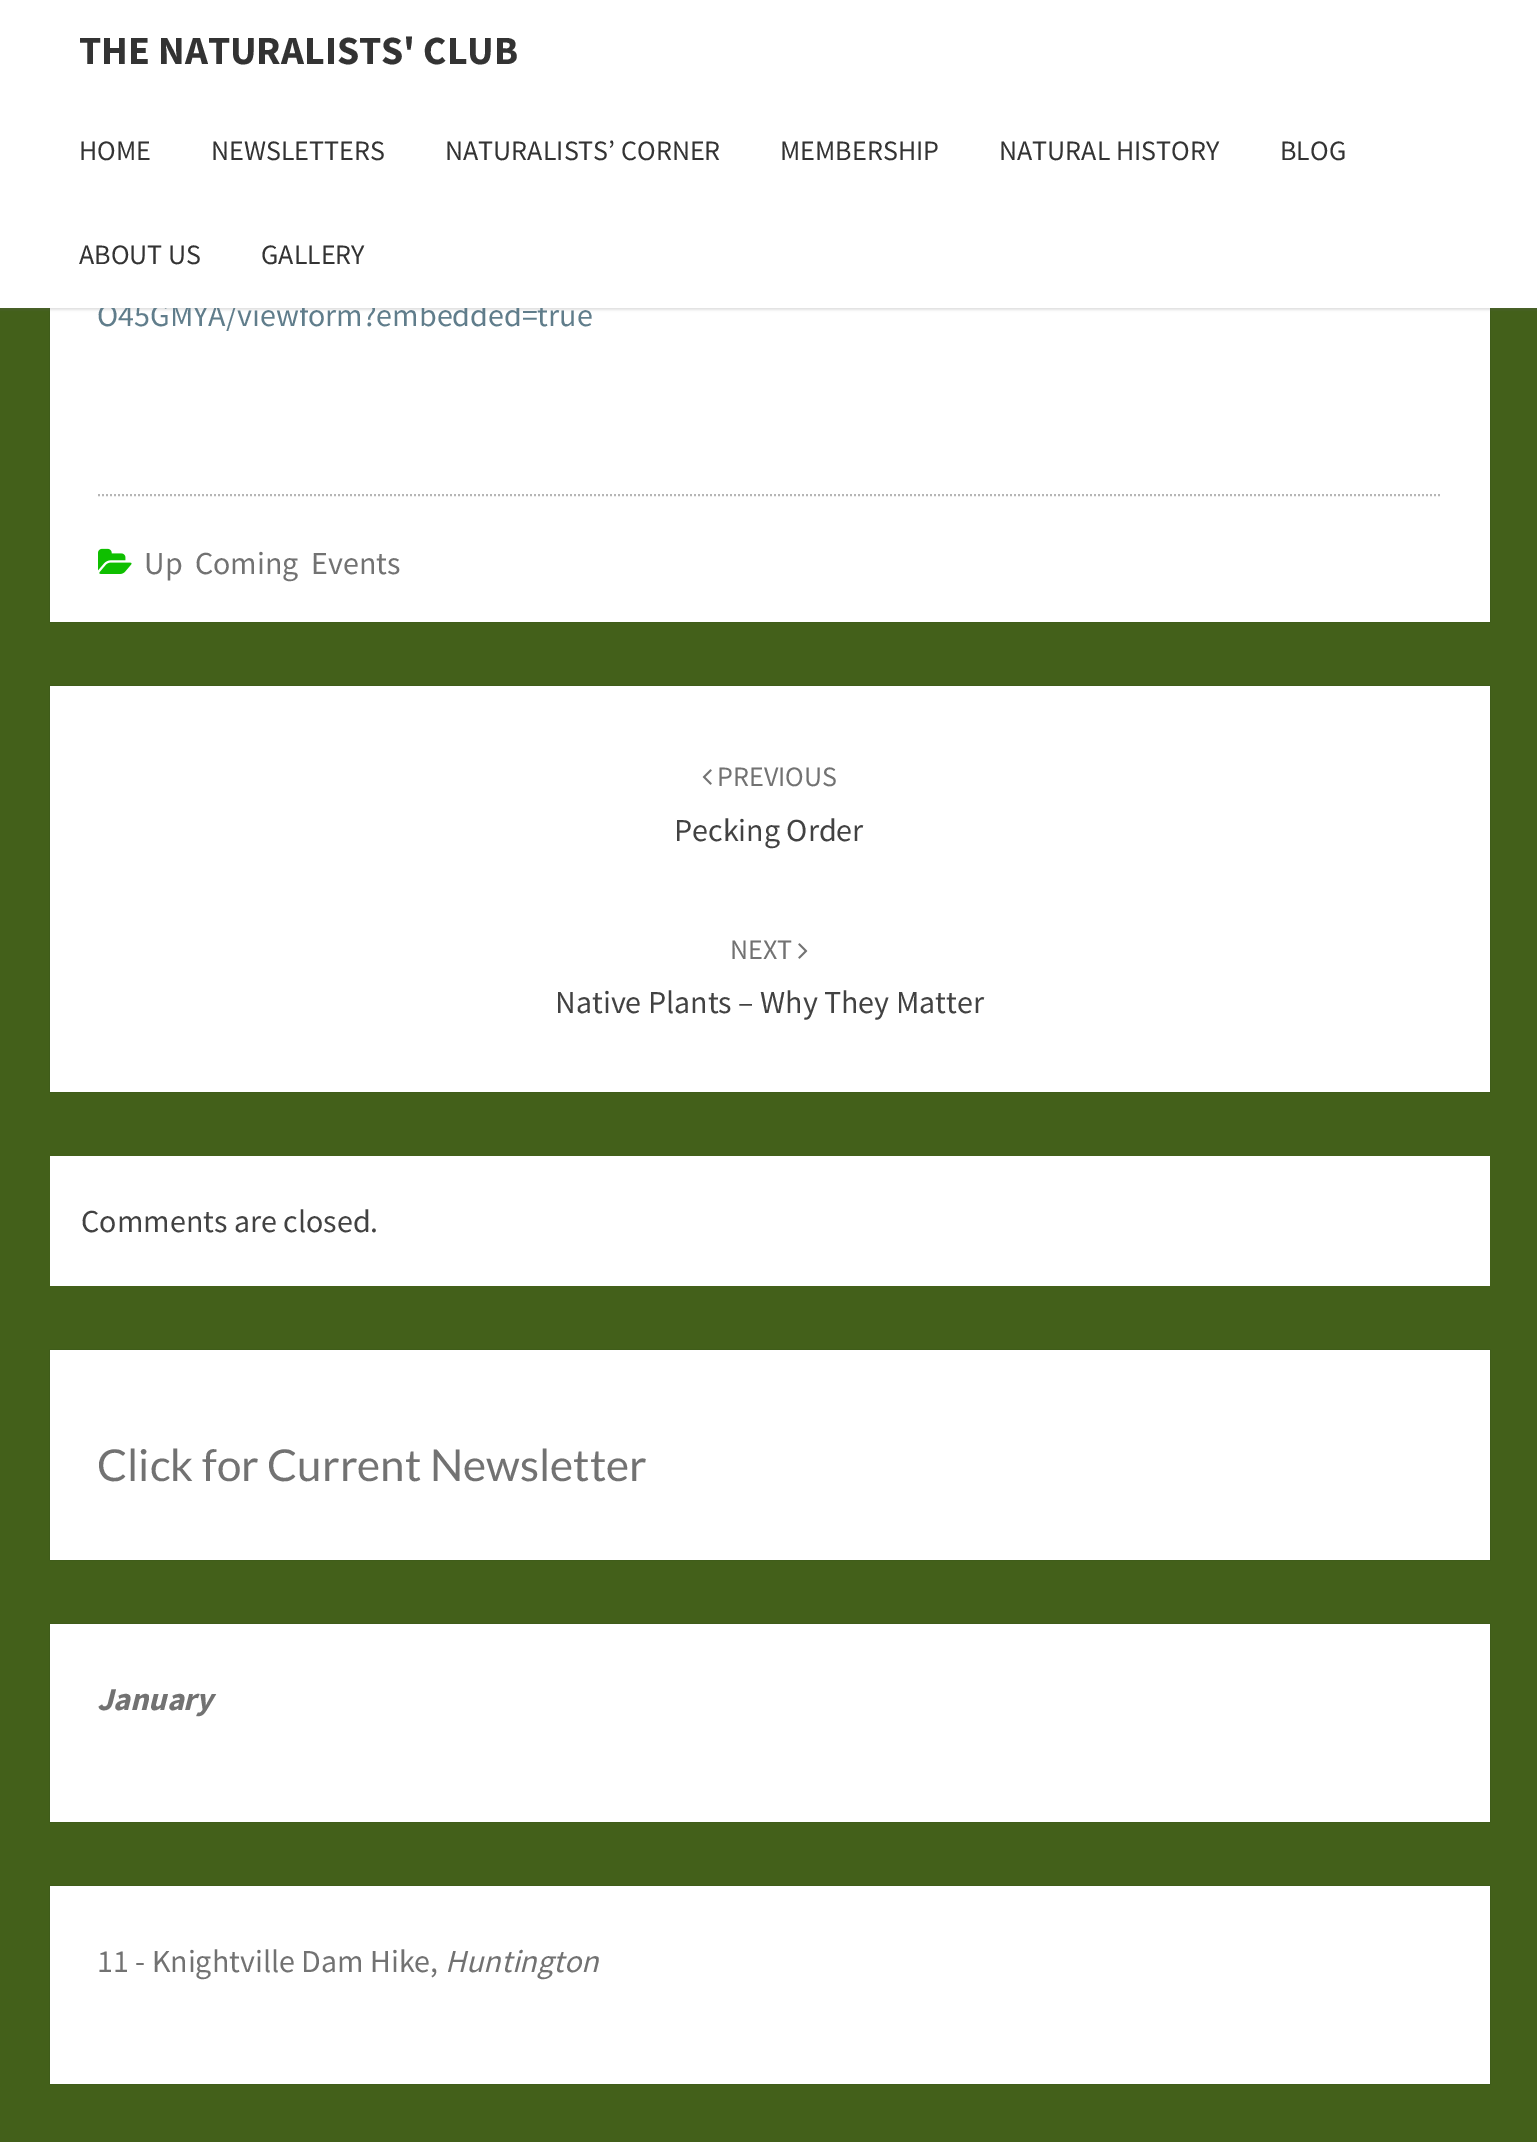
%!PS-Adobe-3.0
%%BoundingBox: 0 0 1537 2142
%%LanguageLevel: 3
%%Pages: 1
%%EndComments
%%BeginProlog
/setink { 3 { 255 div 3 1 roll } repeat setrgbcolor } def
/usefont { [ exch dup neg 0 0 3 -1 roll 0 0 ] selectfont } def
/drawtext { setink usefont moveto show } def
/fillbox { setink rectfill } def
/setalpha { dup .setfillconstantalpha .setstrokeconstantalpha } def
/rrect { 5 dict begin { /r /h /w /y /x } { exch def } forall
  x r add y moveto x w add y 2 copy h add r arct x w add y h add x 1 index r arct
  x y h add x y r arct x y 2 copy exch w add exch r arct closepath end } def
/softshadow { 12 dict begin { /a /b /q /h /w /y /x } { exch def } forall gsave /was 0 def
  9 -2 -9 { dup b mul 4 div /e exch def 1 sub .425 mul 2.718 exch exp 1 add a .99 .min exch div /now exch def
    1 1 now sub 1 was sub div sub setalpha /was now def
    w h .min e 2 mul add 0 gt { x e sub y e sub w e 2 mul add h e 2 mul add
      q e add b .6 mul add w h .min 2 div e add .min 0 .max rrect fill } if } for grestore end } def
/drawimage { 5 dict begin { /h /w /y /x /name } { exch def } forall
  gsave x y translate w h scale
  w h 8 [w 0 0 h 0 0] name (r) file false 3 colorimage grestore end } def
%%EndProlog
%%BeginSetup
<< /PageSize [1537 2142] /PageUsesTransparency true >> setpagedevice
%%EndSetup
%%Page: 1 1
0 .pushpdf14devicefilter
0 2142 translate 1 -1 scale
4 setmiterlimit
0 0 1537 2142 67 96 26 fillbox
0 0 0 setink
50 -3 1440 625 0 1 0.15 softshadow
50 308 1440 314 255 255 255 fillbox
100 100 100 setink
0 2 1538 308 0 1 0.2 softshadow
(O45GMYA/viewform?embedded=true) 97 326 /SourceSansPro-Regular 32 96 125 139 drawtext
0 0 1537 308 255 255 255 fillbox
(THE NATURALISTS' CLUB) 79 64 /SourceSansPro-Bold 40 51 51 51 drawtext
(HOME) 79 160 /SourceSansPro-Regular 28 51 51 51 drawtext
(NEWSLETTERS) 211 160 /SourceSansPro-Regular 28 51 51 51 drawtext
(NATURALISTS’ CORNER) 445 160 /SourceSansPro-Regular 28 51 51 51 drawtext
(MEMBERSHIP) 780 160 /SourceSansPro-Regular 28 51 51 51 drawtext
(NATURAL HISTORY) 999 160 /SourceSansPro-Regular 28 51 51 51 drawtext
(BLOG) 1280 160 /SourceSansPro-Regular 28 51 51 51 drawtext
(ABOUT US) 79 264 /SourceSansPro-Regular 28 51 51 51 drawtext
(GALLERY) 261 264 /SourceSansPro-Regular 28 51 51 51 drawtext
182 182 182 setink
2 setlinewidth
[2 2] 0 setdash
98 495 moveto 1442 495 lineto stroke
(assets/img1.rgb) 98 548 34 26 drawimage
/SourceSansPro-Regular 32 usefont
114 114 114 setink
144 574 moveto 6 0 32 (Up Coming Events) widthshow
0 0 0 setink
50 686 1440 406 0 1 0.15 softshadow
50 686 1440 406 255 255 255 fillbox
(assets/img2.rgb) 702 769 10 16 drawimage
(PREVIOUS) 717 786 /SourceSansPro-Regular 28 114 114 114 drawtext
(Pecking Order) 674 841 /SourceSansPro-Regular 32 66 66 66 drawtext
(NEXT) 730 959 /SourceSansPro-Regular 28 114 114 114 drawtext
(assets/img3.rgb) 798 943 10 16 drawimage
(Native Plants – Why They Matter) 555 1013 /SourceSansPro-Regular 32 66 66 66 drawtext
50 1156 1440 130 255 255 255 fillbox
(Comments are closed.) 81 1232 /SourceSansPro-Regular 32 66 66 66 drawtext
0 0 0 setink
50 1350 1440 210 0 1 0.15 softshadow
50 1350 1440 210 255 255 255 fillbox
(Click for Current Newsletter) 97 1481 /Lato-Regular 44 114 114 114 drawtext
0 0 0 setink
50 1624 1440 198 0 1 0.15 softshadow
50 1624 1440 198 255 255 255 fillbox
(January) 97 1710 /SourceSansPro-BoldItalic 32 114 114 114 drawtext
0 0 0 setink
50 1886 1440 198 0 1 0.15 softshadow
50 1886 1440 198 255 255 255 fillbox
(11 - Knightville Dam Hike,) 97 1972 /SourceSansPro-Regular 32 114 114 114 drawtext
(Huntington) 445 1972 /SourceSansPro-Italic 32 114 114 114 drawtext
.poppdf14devicefilter showpage
%%EOF
